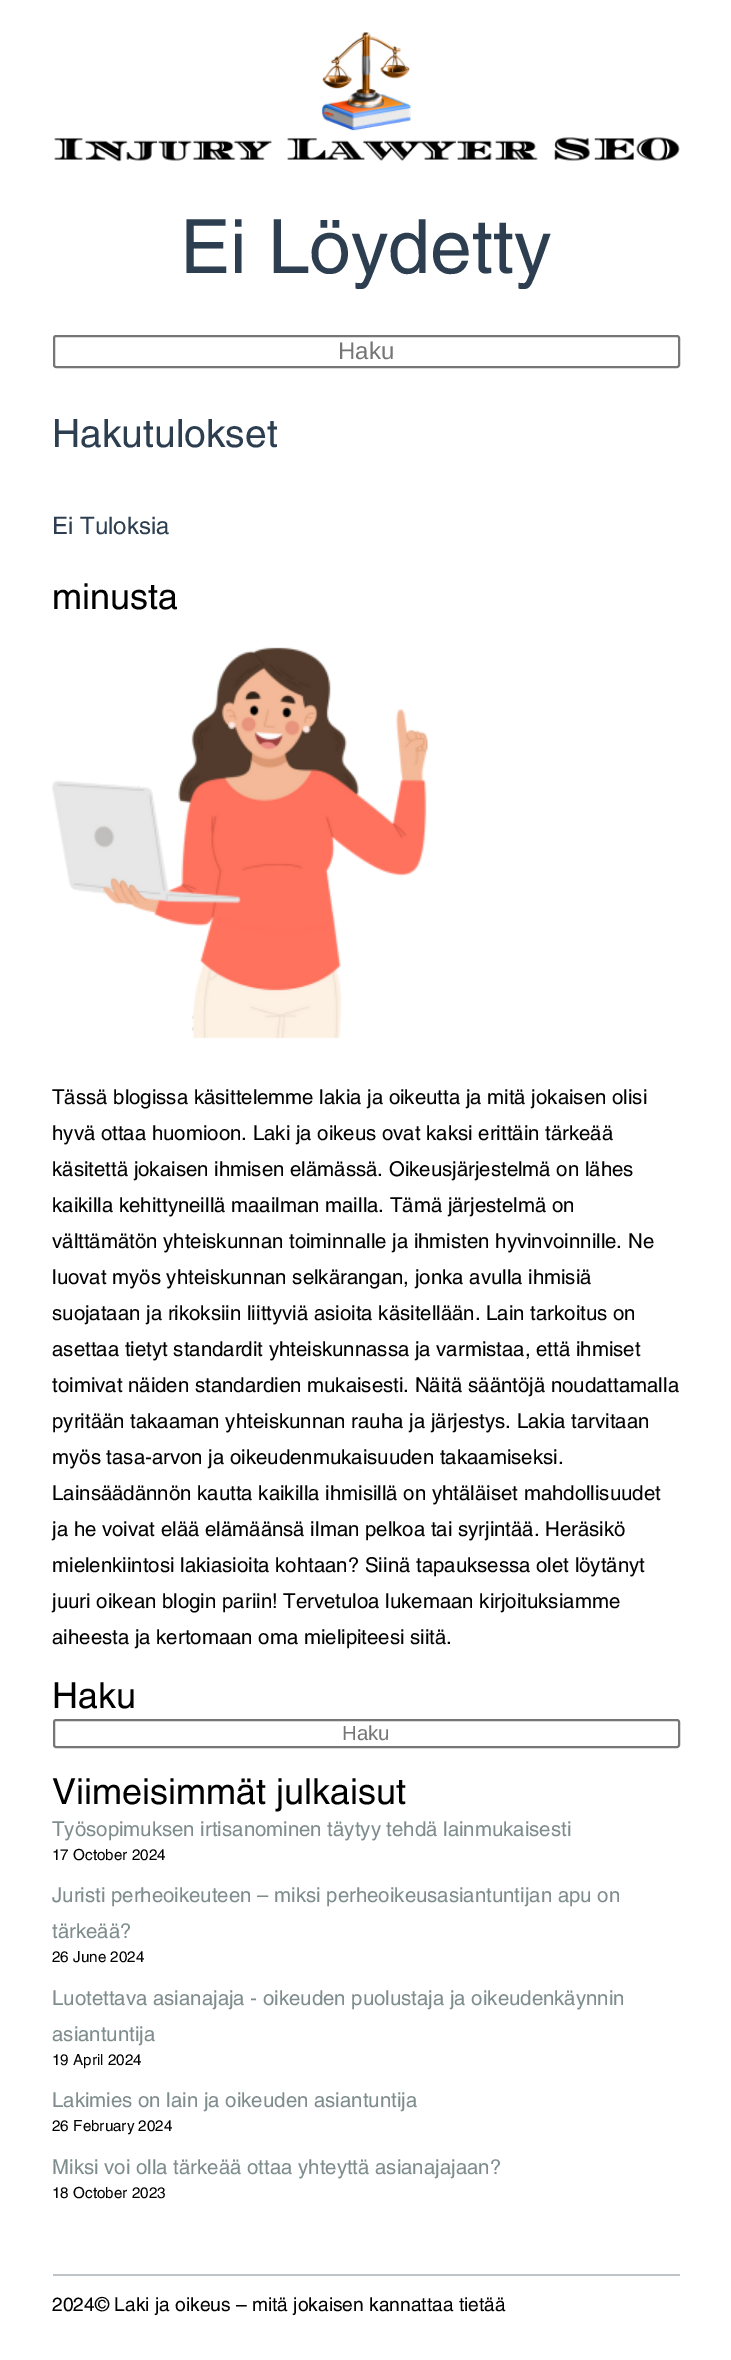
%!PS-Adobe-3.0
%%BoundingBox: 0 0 731 2360
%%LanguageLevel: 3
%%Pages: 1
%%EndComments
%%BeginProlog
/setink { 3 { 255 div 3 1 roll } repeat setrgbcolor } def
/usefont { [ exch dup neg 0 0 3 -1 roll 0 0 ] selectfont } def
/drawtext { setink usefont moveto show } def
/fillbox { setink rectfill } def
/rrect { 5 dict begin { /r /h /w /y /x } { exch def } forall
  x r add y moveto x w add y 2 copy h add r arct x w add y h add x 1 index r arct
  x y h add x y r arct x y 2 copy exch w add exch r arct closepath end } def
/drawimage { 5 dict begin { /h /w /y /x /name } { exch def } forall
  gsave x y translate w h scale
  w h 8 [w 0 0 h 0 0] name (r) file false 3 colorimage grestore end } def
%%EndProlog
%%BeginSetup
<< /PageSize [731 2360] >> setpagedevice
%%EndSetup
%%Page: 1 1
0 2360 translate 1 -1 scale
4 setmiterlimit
0 0 731 2360 255 255 255 fillbox
(assets/img1.rgb) 54 32 626 130 drawimage
(Ei Löydetty) 180 273 /Helvetica-Regular 75 44 62 80 drawtext
118 118 118 setink
2 setlinewidth
54 336 625 31 2 rrect stroke
(Haku) 338 359 /LiberationSans-Regular 24 117 117 117 drawtext
(Hakutulokset) 52 447 /Helvetica-Regular 39 44 62 80 drawtext
(Ei Tuloksia) 52 534 /Helvetica-Regular 24 44 62 80 drawtext
(minusta) 52 609 /Helvetica-Regular 36 0 0 0 drawtext
(assets/img2.rgb) 52 647 376 392 drawimage
(Tässä blogissa käsittelemme lakia ja oikeutta ja mitä jokaisen olisi) 52 1104 /Helvetica-Regular 20.4 0 0 0 drawtext
(hyvä ottaa huomioon. Laki ja oikeus ovat kaksi erittäin tärkeää) 52 1140 /Helvetica-Regular 20.4 0 0 0 drawtext
(käsitettä jokaisen ihmisen elämässä. Oikeusjärjestelmä on lähes) 52 1176 /Helvetica-Regular 20.4 0 0 0 drawtext
(kaikilla kehittyneillä maailman mailla. Tämä järjestelmä on) 52 1212 /Helvetica-Regular 20.4 0 0 0 drawtext
(välttämätön yhteiskunnan toiminnalle ja ihmisten hyvinvoinnille. Ne) 52 1248 /Helvetica-Regular 20.4 0 0 0 drawtext
(luovat myös yhteiskunnan selkärangan, jonka avulla ihmisiä) 52 1284 /Helvetica-Regular 20.4 0 0 0 drawtext
(suojataan ja rikoksiin liittyviä asioita käsitellään. Lain tarkoitus on) 52 1320 /Helvetica-Regular 20.4 0 0 0 drawtext
(asettaa tietyt standardit yhteiskunnassa ja varmistaa, että ihmiset) 52 1356 /Helvetica-Regular 20.4 0 0 0 drawtext
(toimivat näiden standardien mukaisesti. Näitä sääntöjä noudattamalla) 52 1392 /Helvetica-Regular 20.4 0 0 0 drawtext
(pyritään takaaman yhteiskunnan rauha ja järjestys. Lakia tarvitaan) 52 1428 /Helvetica-Regular 20.4 0 0 0 drawtext
(myös tasa-arvon ja oikeudenmukaisuuden takaamiseksi.) 52 1464 /Helvetica-Regular 20.4 0 0 0 drawtext
(Lainsäädännön kautta kaikilla ihmisillä on yhtäläiset mahdollisuudet) 52 1500 /Helvetica-Regular 20.4 0 0 0 drawtext
(ja he voivat elää elämäänsä ilman pelkoa tai syrjintää. Heräsikö) 52 1536 /Helvetica-Regular 20.4 0 0 0 drawtext
(mielenkiintosi lakiasioita kohtaan? Siinä tapauksessa olet löytänyt) 52 1572 /Helvetica-Regular 20.4 0 0 0 drawtext
(juuri oikean blogin pariin! Tervetuloa lukemaan kirjoituksiamme) 52 1608 /Helvetica-Regular 20.4 0 0 0 drawtext
(aiheesta ja kertomaan oma mielipiteesi siitä.) 52 1644 /Helvetica-Regular 20.4 0 0 0 drawtext
(Haku) 52 1708 /Helvetica-Regular 36 0 0 0 drawtext
118 118 118 setink
54 1720 625 27 2 rrect stroke
(Haku) 342 1740 /LiberationSans-Regular 20.4 117 117 117 drawtext
(Viimeisimmät julkaisut) 52 1804 /Helvetica-Regular 36 0 0 0 drawtext
(Työsopimuksen irtisanominen täytyy tehdä lainmukaisesti) 52 1836 /Helvetica-Regular 20.4 127 140 141 drawtext
(17 October 2024) 52 1860 /Helvetica-Regular 15.25 0 0 0 drawtext
(Juristi perheoikeuteen – miksi perheoikeusasiantuntijan apu on) 52 1902 /Helvetica-Regular 20.4 127 140 141 drawtext
(tärkeää?) 52 1938 /Helvetica-Regular 20.4 127 140 141 drawtext
(26 June 2024) 52 1962 /Helvetica-Regular 15.25 0 0 0 drawtext
(Luotettava asianajaja - oikeuden puolustaja ja oikeudenkäynnin) 52 2005 /Helvetica-Regular 20.4 127 140 141 drawtext
(asiantuntija) 52 2041 /Helvetica-Regular 20.4 127 140 141 drawtext
(19 April 2024) 52 2065 /Helvetica-Regular 15.25 0 0 0 drawtext
(Lakimies on lain ja oikeuden asiantuntija) 52 2107 /Helvetica-Regular 20.4 127 140 141 drawtext
(26 February 2024) 52 2131 /Helvetica-Regular 15.25 0 0 0 drawtext
(Miksi voi olla tärkeää ottaa yhteyttä asianajajaan?) 52 2174 /Helvetica-Regular 20.4 127 140 141 drawtext
(18 October 2023) 52 2198 /Helvetica-Regular 15.25 0 0 0 drawtext
53 2274 627 2 189 195 199 fillbox
(2024© Laki ja oikeus – mitä jokaisen kannattaa tietää) 52 2311 /Helvetica-Regular 19.2 0 0 0 drawtext
showpage
%%EOF
